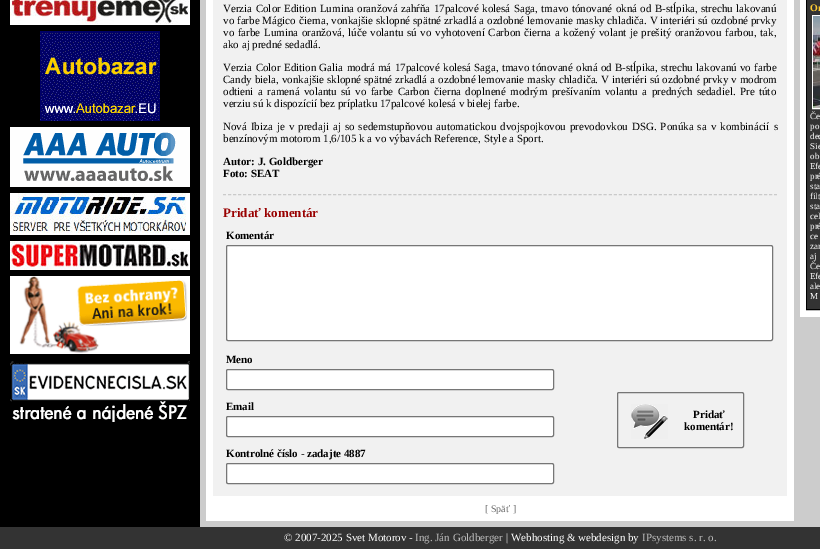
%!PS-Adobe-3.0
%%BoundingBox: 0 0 820 549
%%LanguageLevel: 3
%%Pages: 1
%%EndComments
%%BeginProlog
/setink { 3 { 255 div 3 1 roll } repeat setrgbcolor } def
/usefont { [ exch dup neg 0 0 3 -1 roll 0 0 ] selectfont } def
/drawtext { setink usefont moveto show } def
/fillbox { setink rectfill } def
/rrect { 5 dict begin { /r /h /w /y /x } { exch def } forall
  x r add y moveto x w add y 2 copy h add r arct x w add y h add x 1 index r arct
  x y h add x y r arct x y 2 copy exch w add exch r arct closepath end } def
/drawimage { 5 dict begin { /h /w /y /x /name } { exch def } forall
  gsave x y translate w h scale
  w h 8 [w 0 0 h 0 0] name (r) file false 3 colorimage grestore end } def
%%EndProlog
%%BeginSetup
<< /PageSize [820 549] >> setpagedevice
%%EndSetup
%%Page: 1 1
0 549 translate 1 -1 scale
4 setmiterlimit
0 0 820 549 255 255 255 fillbox
(assets/img1.rgb) 0 0 820 527 drawimage
(assets/img2.rgb) 10 0 180 25 drawimage
(assets/img3.rgb) 40 31 120 90 drawimage
(assets/img4.rgb) 10 127 180 60 drawimage
(assets/img5.rgb) 10 193 180 42 drawimage
(assets/img6.rgb) 10 241 180 29 drawimage
(assets/img7.rgb) 10 276 180 78 drawimage
(assets/img8.rgb) 10 361 180 61 drawimage
206 0 588 521 255 255 255 fillbox
213 0 574 496 241 241 241 fillbox
/LiberationSerif-Regular 11 usefont
0 0 0 setink
223 12 moveto 0.6 0 32 (Verzia Color Edition Lumina oranžová zahŕňa 17palcové kolesá Saga, tmavo tónované okná od B-stĺpika, strechu lakovanú) widthshow
223 24 moveto 0.1 0 32 (vo farbe Mágico čierna, vonkajšie sklopné spätné zrkadlá a ozdobné lemovanie masky chladiča. V interiéri sú ozdobné prvky) widthshow
223 36 moveto 0.9 0 32 (vo farbe Lumina oranžová, lúče volantu sú vo vyhotovení Carbon čierna a kožený volant je prešitý oranžovou farbou, tak,) widthshow
(ako aj predné sedadlá.) 223 48 /LiberationSerif-Regular 11 0 0 0 drawtext
223 71 moveto 0.5 0 32 (Verzia Color Edition Galia modrá má 17palcové kolesá Saga, tmavo tónované okná od B-stĺpika, strechu lakovanú vo farbe) widthshow
223 83 moveto 0.2 0 32 (Candy biela, vonkajšie sklopné spätné zrkadlá a ozdobné lemovanie masky chladiča. V interiéri sú ozdobné prvky v modrom) widthshow
223 95 moveto 1.6 0 32 (odtieni a ramená volantu sú vo farbe Carbon čierna doplnené modrým prešívaním volantu a predných sedadiel. Pre túto) widthshow
(verziu sú k dispozícií bez príplatku 17palcové kolesá v bielej farbe.) 223 107 /LiberationSerif-Regular 11 0 0 0 drawtext
223 130 moveto 1.25 0 32 (Nová Ibiza je v predaji aj so sedemstupňovou automatickou dvojspojkovou prevodovkou DSG. Ponúka sa v kombinácií s) widthshow
(benzínovým motorom 1,6/105 k a vo výbavách Reference, Style a Sport.) 223 142 /LiberationSerif-Regular 11 0 0 0 drawtext
(Autor: J. Goldberger) 223 165 /LiberationSerif-Bold 11 0 0 0 drawtext
(Foto: SEAT) 223 177 /LiberationSerif-Bold 11 0 0 0 drawtext
202 202 202 setink
[3 2.01] 0 setdash
223 194.5 moveto 777 194.5 lineto stroke
(Pridať komentár) 223 217 /LiberationSerif-Bold 13 153 0 0 drawtext
(Komentár) 226 239 /LiberationSerif-Bold 11 0 0 0 drawtext
255 255 255 setink
226.5 245.5 546 95 1.5 rrect gsave fill grestore
118 118 118 setink
[] 0 setdash
stroke
(Meno) 226 363 /LiberationSerif-Bold 11 0 0 0 drawtext
255 255 255 setink
226.5 369.5 327 20 1.5 rrect gsave fill grestore
118 118 118 setink
stroke
617.5 392.5 126 55 1.5 rrect stroke
(assets/img9.rgb) 631 404 37 35 drawimage
(Pridať) 693 418 /LiberationSerif-Bold 11 0 0 0 drawtext
(komentár!) 684 430 /LiberationSerif-Bold 11 0 0 0 drawtext
(Email) 226 410 /LiberationSerif-Bold 11 0 0 0 drawtext
255 255 255 setink
226.5 416.5 327 20 1.5 rrect gsave fill grestore
118 118 118 setink
stroke
(Kontrolné číslo - zadajte 4887) 226 457 /LiberationSerif-Bold 11 0 0 0 drawtext
255 255 255 setink
226.5 463.5 327 20 1.5 rrect gsave fill grestore
118 118 118 setink
stroke
([ Späť ]) 485 512 /LiberationSerif-Regular 10 102 102 102 drawtext
800 0 20 317 255 255 255 fillbox
0 0 0 setink
806.5 -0.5 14 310 rectstroke
807 0 13 309 51 51 51 fillbox
(Or) 810 11 /LiberationSerif-Bold 10 255 204 51 drawtext
255 255 255 setink
812.5 15.5 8 93 rectstroke
(assets/img10.rgb) 813 16 7 92 drawimage
(Če) 810 119 /LiberationSerif-Regular 9 255 255 255 drawtext
(po) 810 129 /LiberationSerif-Regular 9 255 255 255 drawtext
(dec) 810 139 /LiberationSerif-Regular 9 255 255 255 drawtext
(Sie) 810 149 /LiberationSerif-Regular 9 255 255 255 drawtext
(ob) 810 159 /LiberationSerif-Regular 9 255 255 255 drawtext
(Efe) 810 169 /LiberationSerif-Regular 9 255 255 255 drawtext
(pré) 810 179 /LiberationSerif-Regular 9 255 255 255 drawtext
(sta) 810 189 /LiberationSerif-Regular 9 255 255 255 drawtext
(filt) 810 199 /LiberationSerif-Regular 9 255 255 255 drawtext
(sta) 810 209 /LiberationSerif-Regular 9 255 255 255 drawtext
(cel) 810 219 /LiberationSerif-Regular 9 255 255 255 drawtext
(pré) 810 229 /LiberationSerif-Regular 9 255 255 255 drawtext
(ce) 810 239 /LiberationSerif-Regular 9 255 255 255 drawtext
(zar) 810 249 /LiberationSerif-Regular 9 255 255 255 drawtext
(aj) 810 259 /LiberationSerif-Regular 9 255 255 255 drawtext
(Če) 810 269 /LiberationSerif-Regular 9 255 255 255 drawtext
(Efe) 810 279 /LiberationSerif-Regular 9 255 255 255 drawtext
(ale) 810 289 /LiberationSerif-Regular 9 255 255 255 drawtext
(M) 810 299 /LiberationSerif-Regular 9 255 255 255 drawtext
0 527 820 22 51 51 51 fillbox
(© 2007-2025 Svet Motorov -) 284 541 /LiberationSerif-Regular 11 255 255 255 drawtext
(Ing. Ján Goldberger) 415 541 /LiberationSerif-Regular 11 187 187 187 drawtext
(| Webhosting & webdesign by) 506 541 /LiberationSerif-Regular 11 255 255 255 drawtext
(IPsystems s. r. o.) 642 541 /LiberationSerif-Regular 11 187 187 187 drawtext
showpage
%%EOF
